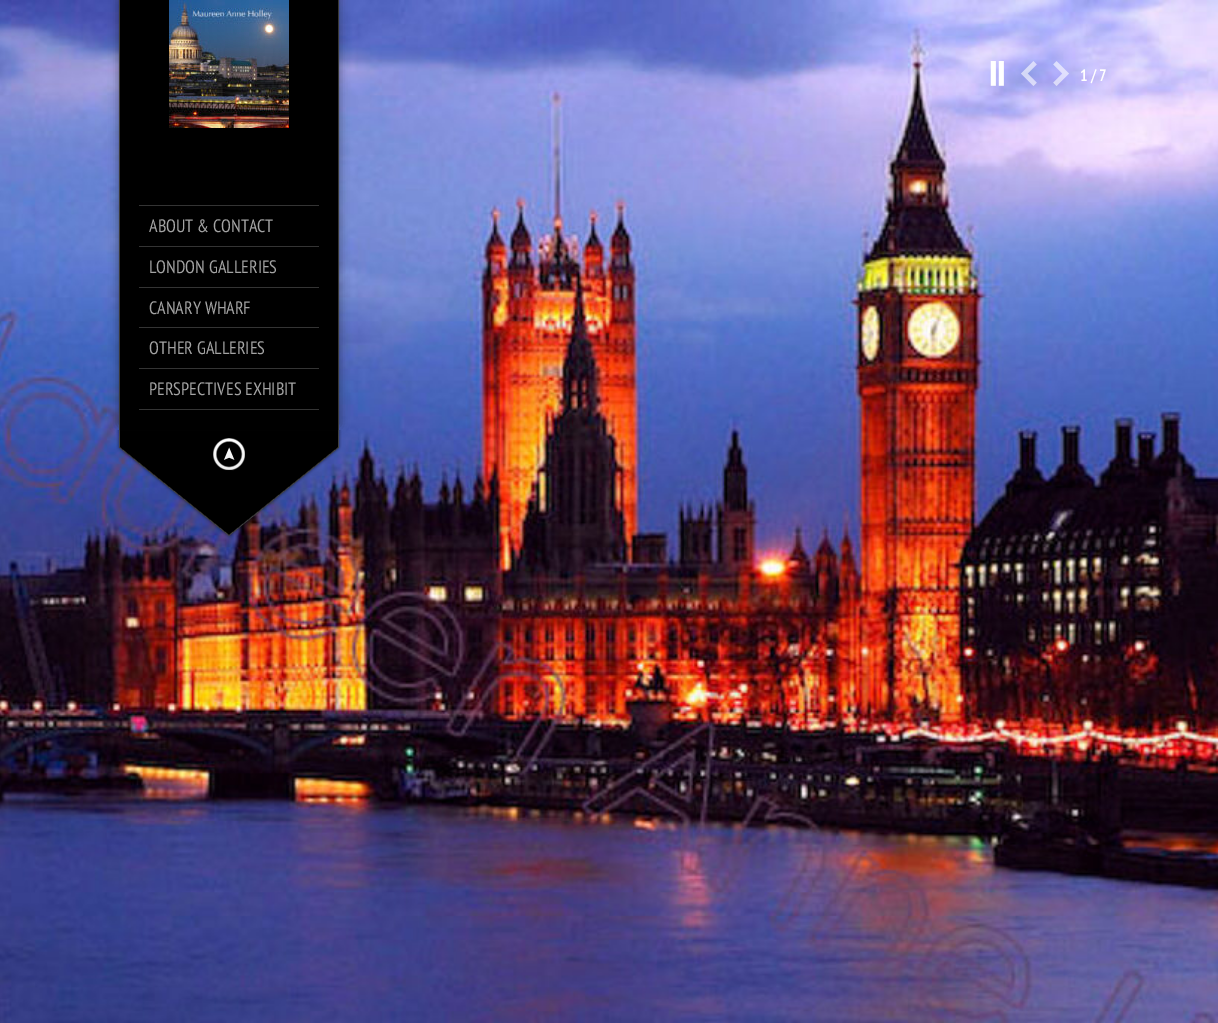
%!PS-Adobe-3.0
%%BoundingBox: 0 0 1218 1023
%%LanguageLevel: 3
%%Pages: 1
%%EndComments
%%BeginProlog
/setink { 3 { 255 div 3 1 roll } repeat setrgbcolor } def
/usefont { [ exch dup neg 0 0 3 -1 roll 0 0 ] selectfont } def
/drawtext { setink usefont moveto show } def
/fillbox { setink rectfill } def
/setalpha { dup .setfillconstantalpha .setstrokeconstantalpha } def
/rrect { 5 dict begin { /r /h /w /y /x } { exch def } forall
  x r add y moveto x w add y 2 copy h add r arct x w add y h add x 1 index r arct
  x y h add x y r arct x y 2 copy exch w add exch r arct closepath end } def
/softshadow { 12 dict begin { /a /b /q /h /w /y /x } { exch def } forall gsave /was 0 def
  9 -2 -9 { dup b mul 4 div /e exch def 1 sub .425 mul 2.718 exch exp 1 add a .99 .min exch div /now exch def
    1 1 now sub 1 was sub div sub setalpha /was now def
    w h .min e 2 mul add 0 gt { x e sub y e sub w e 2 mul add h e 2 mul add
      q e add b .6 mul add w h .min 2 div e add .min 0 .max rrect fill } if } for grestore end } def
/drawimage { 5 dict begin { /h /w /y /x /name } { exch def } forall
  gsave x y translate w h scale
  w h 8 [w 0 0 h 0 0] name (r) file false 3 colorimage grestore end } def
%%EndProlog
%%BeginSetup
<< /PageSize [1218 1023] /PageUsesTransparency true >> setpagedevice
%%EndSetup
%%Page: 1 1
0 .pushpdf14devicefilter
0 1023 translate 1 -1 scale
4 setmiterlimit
0 0 1218 1023 255 255 255 fillbox
(assets/img1.rgb) 0 0 1218 1023 drawimage
(assets/img2.rgb) 990 61 14 25 drawimage
(assets/img3.rgb) 1021 61 16 25 drawimage
(assets/img4.rgb) 1053 61 16 25 drawimage
(1 / 7) 1080 81 /PTSansNarrow-Bold 16 255 255 255 drawtext
(assets/img6.rgb) 116 430 226 108 drawimage
17 17 17 setink
119 -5 220 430 0 5 0.5 softshadow
120 0 218 430 0 0 0 fillbox
338 0 1 430 57 56 54 fillbox
119 0 1 430 57 56 54 fillbox
(assets/img5.rgb) 169 0 120 128 drawimage
139 205 180 1 52 52 52 fillbox
139 246 180 1 52 52 52 fillbox
(ABOUT & CONTACT) 149 232 /PTSansNarrow-Regular 18 163 163 163 drawtext
139 287 180 1 52 52 52 fillbox
(LONDON GALLERIES) 149 273 /PTSansNarrow-Regular 18 163 163 163 drawtext
139 327 180 1 52 52 52 fillbox
(CANARY WHARF) 149 314 /PTSansNarrow-Regular 18 163 163 163 drawtext
139 368 180 1 52 52 52 fillbox
(OTHER GALLERIES) 149 354 /PTSansNarrow-Regular 18 163 163 163 drawtext
139 409 180 1 52 52 52 fillbox
(PERSPECTIVES EXHIBIT) 149 395 /PTSansNarrow-Regular 18 163 163 163 drawtext
(assets/img7.rgb) 213 438 32 33 drawimage
.poppdf14devicefilter showpage
%%EOF
